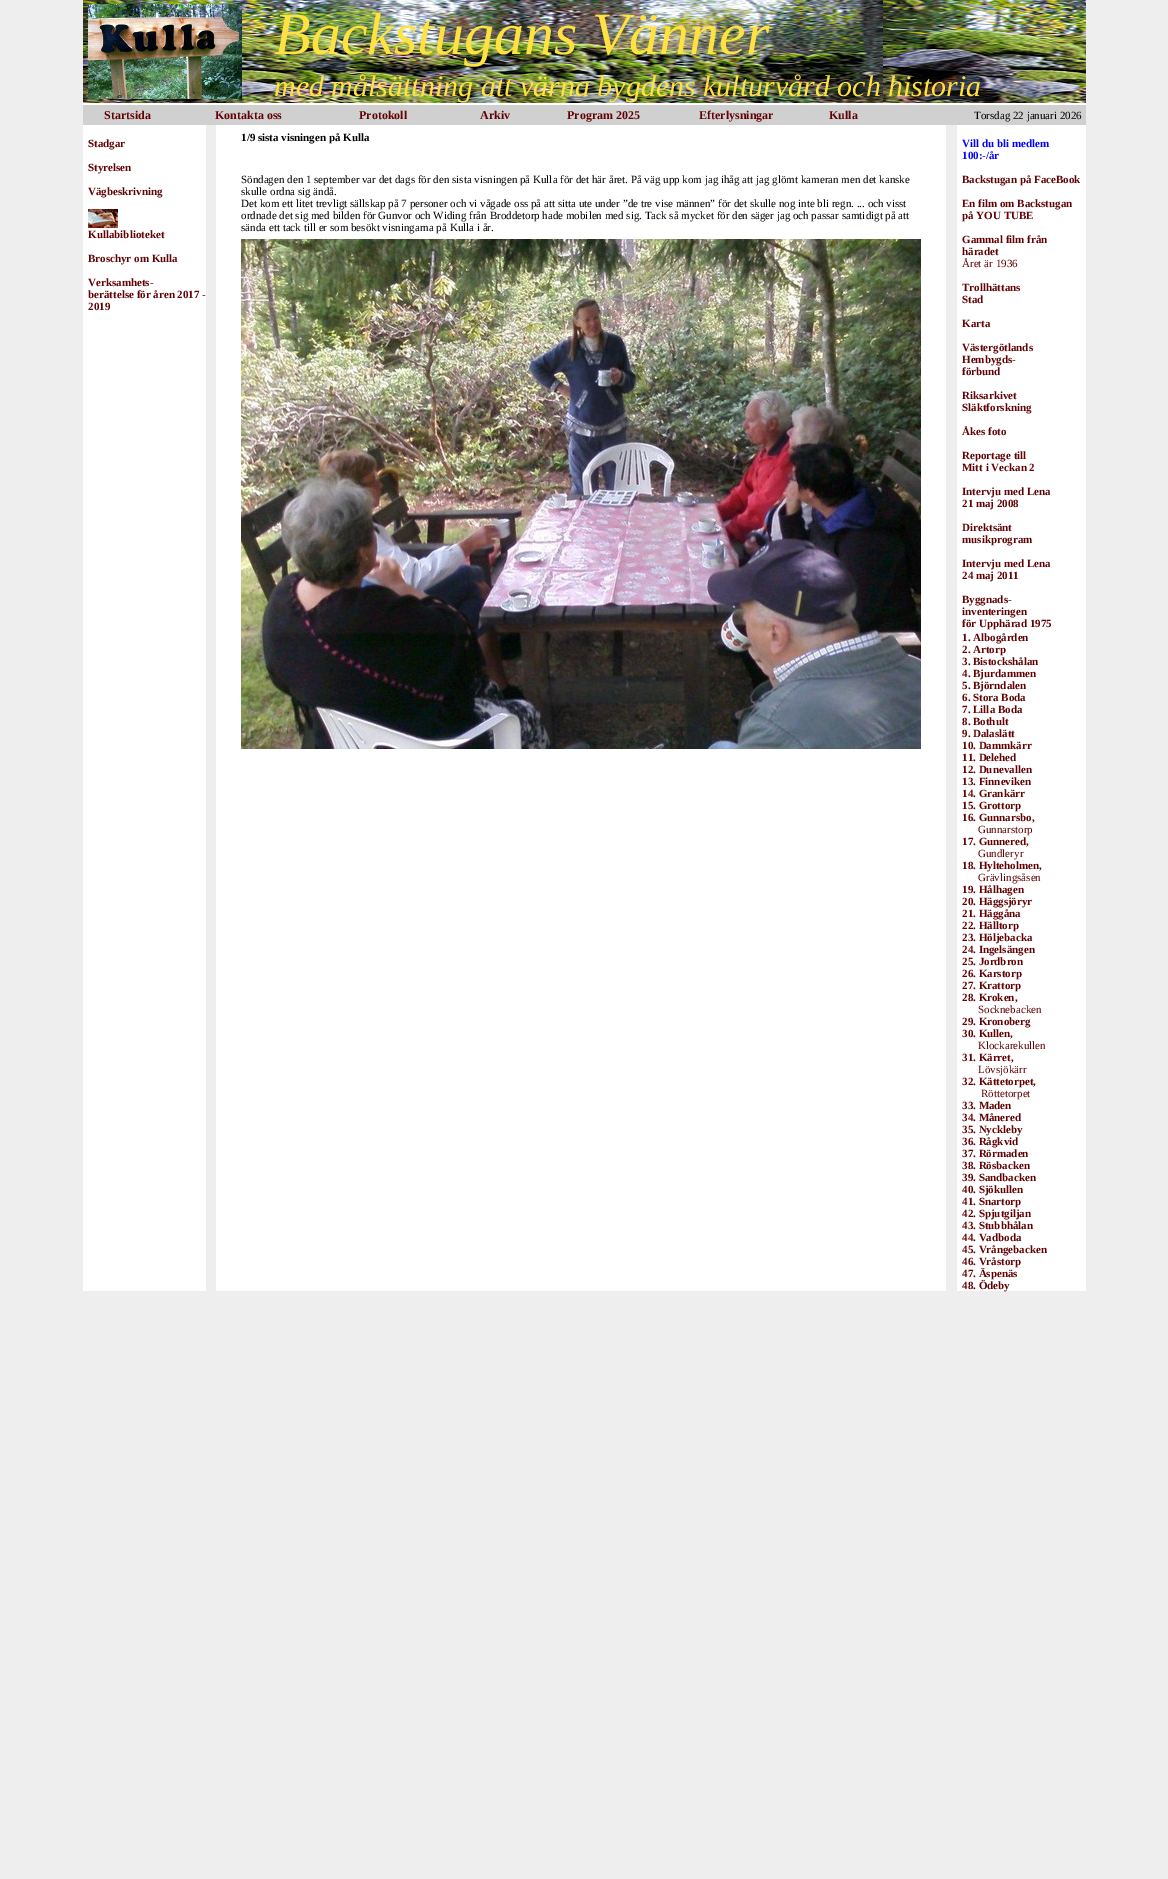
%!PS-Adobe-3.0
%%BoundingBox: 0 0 1168 1879
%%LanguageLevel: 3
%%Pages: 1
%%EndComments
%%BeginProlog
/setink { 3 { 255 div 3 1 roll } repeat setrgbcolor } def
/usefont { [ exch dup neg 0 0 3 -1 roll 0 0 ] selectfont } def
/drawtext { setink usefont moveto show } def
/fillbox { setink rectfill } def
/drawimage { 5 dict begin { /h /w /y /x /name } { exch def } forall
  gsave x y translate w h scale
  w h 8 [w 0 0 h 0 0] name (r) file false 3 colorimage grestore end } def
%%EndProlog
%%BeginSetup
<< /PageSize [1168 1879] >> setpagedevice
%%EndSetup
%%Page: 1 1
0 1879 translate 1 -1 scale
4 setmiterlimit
0 0 1168 1879 238 238 238 fillbox
83 103 1003 1188 255 255 255 fillbox
(assets/img1.rgb) 83 0 1003 103 drawimage
(assets/img2.rgb) 88 4 154 95 drawimage
(Backstugans Vänner) 274 54 /LiberationSerif-Italic 60 255 225 63 drawtext
(med målsättning att värna bygdens kulturvård och historia) 274 96 /LiberationSerif-Italic 30 255 225 63 drawtext
83 105 1003 20 208 208 208 fillbox
(Startsida) 104 119 /LiberationSerif-Bold 12 98 2 4 drawtext
(Kontakta oss) 215 119 /LiberationSerif-Bold 12 98 2 4 drawtext
(Protokoll) 359 119 /LiberationSerif-Bold 12 98 2 4 drawtext
(Arkiv) 480 119 /LiberationSerif-Bold 12 98 2 4 drawtext
(Program 2025) 567 119 /LiberationSerif-Bold 12 98 2 4 drawtext
(Efterlysningar) 699 119 /LiberationSerif-Bold 12 98 2 4 drawtext
(Kulla) 829 119 /LiberationSerif-Bold 12 98 2 4 drawtext
(Torsdag 22 januari 2026) 974 119 /LiberationSerif-Regular 11 0 0 0 drawtext
(Stadgar) 88 147 /LiberationSerif-Bold 11 98 2 4 drawtext
(Styrelsen) 88 171 /LiberationSerif-Bold 11 98 2 4 drawtext
(Vägbeskrivning) 88 195 /LiberationSerif-Bold 11 98 2 4 drawtext
(assets/img3.rgb) 88 209 30 19 drawimage
(Kullabiblioteket) 88 238 /LiberationSerif-Bold 11 98 2 4 drawtext
(Broschyr om Kulla) 88 262 /LiberationSerif-Bold 11 98 2 4 drawtext
(Verksamhets-) 88 286 /LiberationSerif-Bold 11 98 2 4 drawtext
(berättelse för åren 2017 -) 88 298 /LiberationSerif-Bold 11 98 2 4 drawtext
(2019) 88 310 /LiberationSerif-Bold 11 98 2 4 drawtext
206 125 10 1166 238 238 238 fillbox
(1/9 sista visningen på Kulla) 241 141 /LiberationSerif-Bold 11 0 0 0 drawtext
(Söndagen den 1 september var det dags för den sista visningen på Kulla för det här året. På väg upp kom jag ihåg att jag glömt kameran men det kanske) 241 183 /LiberationSerif-Regular 11 0 0 0 drawtext
(skulle ordna sig ändå.) 241 195 /LiberationSerif-Regular 11 0 0 0 drawtext
(Det kom ett litet trevligt sällskap på 7 personer och vi vågade oss på att sitta ute under ”de tre vise männen” för det skulle nog inte bli regn. ... och visst) 241 207 /LiberationSerif-Regular 11 0 0 0 drawtext
(ordnade det sig med bilden för Gunvor och Widing från Broddetorp hade mobilen med sig. Tack så mycket för den säger jag och passar samtidigt på att) 241 219 /LiberationSerif-Regular 11 0 0 0 drawtext
(sända ett tack till er som besökt visningarna på Kulla i år.) 241 231 /LiberationSerif-Regular 11 0 0 0 drawtext
(assets/img4.rgb) 241 239 680 510 drawimage
946 125 11 1166 238 238 238 fillbox
(Vill du bli medlem) 962 147 /LiberationSerif-Bold 11 0 0 255 drawtext
(100:-/år) 962 159 /LiberationSerif-Bold 11 0 0 255 drawtext
(Backstugan på FaceBook) 962 183 /LiberationSerif-Bold 11 98 2 4 drawtext
(En film om Backstugan) 962 207 /LiberationSerif-Bold 11 98 2 4 drawtext
(på YOU TUBE) 962 219 /LiberationSerif-Bold 11 98 2 4 drawtext
(Gammal film från) 962 243 /LiberationSerif-Bold 11 98 2 4 drawtext
(häradet) 962 255 /LiberationSerif-Bold 11 98 2 4 drawtext
(Året är 1936) 962 267 /LiberationSerif-Regular 11 98 2 4 drawtext
(Trollhättans) 962 291 /LiberationSerif-Bold 11 98 2 4 drawtext
(Stad) 962 303 /LiberationSerif-Bold 11 98 2 4 drawtext
(Karta) 962 327 /LiberationSerif-Bold 11 98 2 4 drawtext
(Västergötlands) 962 351 /LiberationSerif-Bold 11 98 2 4 drawtext
(Hembygds-) 962 363 /LiberationSerif-Bold 11 98 2 4 drawtext
(förbund) 962 375 /LiberationSerif-Bold 11 98 2 4 drawtext
(Riksarkivet) 962 399 /LiberationSerif-Bold 11 98 2 4 drawtext
(Släktforskning) 962 411 /LiberationSerif-Bold 11 98 2 4 drawtext
(Åkes foto) 962 435 /LiberationSerif-Bold 11 98 2 4 drawtext
(Reportage till) 962 459 /LiberationSerif-Bold 11 98 2 4 drawtext
(Mitt i Veckan 2) 962 471 /LiberationSerif-Bold 11 98 2 4 drawtext
(Intervju med Lena) 962 495 /LiberationSerif-Bold 11 98 2 4 drawtext
(21 maj 2008) 962 507 /LiberationSerif-Bold 11 98 2 4 drawtext
(Direktsänt) 962 531 /LiberationSerif-Bold 11 98 2 4 drawtext
(musikprogram) 962 543 /LiberationSerif-Bold 11 98 2 4 drawtext
(Intervju med Lena) 962 567 /LiberationSerif-Bold 11 98 2 4 drawtext
(24 maj 2011) 962 579 /LiberationSerif-Bold 11 98 2 4 drawtext
(Byggnads-) 962 603 /LiberationSerif-Bold 11 98 2 4 drawtext
(inventeringen) 962 615 /LiberationSerif-Bold 11 98 2 4 drawtext
(för Upphärad 1975) 962 627 /LiberationSerif-Bold 11 98 2 4 drawtext
(1. Albogården) 962 641 /LiberationSerif-Bold 11 98 2 4 drawtext
(2. Artorp) 962 653 /LiberationSerif-Bold 11 98 2 4 drawtext
(3. Bistockshålan) 962 665 /LiberationSerif-Bold 11 98 2 4 drawtext
(4. Bjurdammen) 962 677 /LiberationSerif-Bold 11 98 2 4 drawtext
(5. Björndalen) 962 689 /LiberationSerif-Bold 11 98 2 4 drawtext
(6. Stora Boda) 962 701 /LiberationSerif-Bold 11 98 2 4 drawtext
(7. Lilla Boda) 962 713 /LiberationSerif-Bold 11 98 2 4 drawtext
(8. Bothult) 962 725 /LiberationSerif-Bold 11 98 2 4 drawtext
(9. Dalaslätt) 962 737 /LiberationSerif-Bold 11 98 2 4 drawtext
(10. Dammkärr) 962 749 /LiberationSerif-Bold 11 98 2 4 drawtext
(11. Delehed) 962 761 /LiberationSerif-Bold 11 98 2 4 drawtext
(12. Dunevallen) 962 773 /LiberationSerif-Bold 11 98 2 4 drawtext
(13. Finneviken) 962 785 /LiberationSerif-Bold 11 98 2 4 drawtext
(14. Grankärr) 962 797 /LiberationSerif-Bold 11 98 2 4 drawtext
(15. Grottorp) 962 809 /LiberationSerif-Bold 11 98 2 4 drawtext
(16. Gunnarsbo,) 962 821 /LiberationSerif-Bold 11 98 2 4 drawtext
(Gunnarstorp) 978 833 /LiberationSerif-Regular 11 98 2 4 drawtext
(17. Gunnered,) 962 845 /LiberationSerif-Bold 11 98 2 4 drawtext
(Gundleryr) 978 857 /LiberationSerif-Regular 11 98 2 4 drawtext
(18. Hylteholmen,) 962 869 /LiberationSerif-Bold 11 98 2 4 drawtext
(Grävlingsåsen) 978 881 /LiberationSerif-Regular 11 98 2 4 drawtext
(19. Hålhagen) 962 893 /LiberationSerif-Bold 11 98 2 4 drawtext
(20. Häggsjöryr) 962 905 /LiberationSerif-Bold 11 98 2 4 drawtext
(21. Häggåna) 962 917 /LiberationSerif-Bold 11 98 2 4 drawtext
(22. Hälltorp) 962 929 /LiberationSerif-Bold 11 98 2 4 drawtext
(23. Höljebacka) 962 941 /LiberationSerif-Bold 11 98 2 4 drawtext
(24. Ingelsängen) 962 953 /LiberationSerif-Bold 11 98 2 4 drawtext
(25. Jordbron) 962 965 /LiberationSerif-Bold 11 98 2 4 drawtext
(26. Karstorp) 962 977 /LiberationSerif-Bold 11 98 2 4 drawtext
(27. Krattorp) 962 989 /LiberationSerif-Bold 11 98 2 4 drawtext
(28. Kroken,) 962 1001 /LiberationSerif-Bold 11 98 2 4 drawtext
(Socknebacken) 978 1013 /LiberationSerif-Regular 11 98 2 4 drawtext
(29. Kronoberg) 962 1025 /LiberationSerif-Bold 11 98 2 4 drawtext
(30. Kullen,) 962 1037 /LiberationSerif-Bold 11 98 2 4 drawtext
(Klockarekullen) 978 1049 /LiberationSerif-Regular 11 98 2 4 drawtext
(31. Kärret,) 962 1061 /LiberationSerif-Bold 11 98 2 4 drawtext
(Lövsjökärr) 978 1073 /LiberationSerif-Regular 11 98 2 4 drawtext
(32. Kättetorpet,) 962 1085 /LiberationSerif-Bold 11 98 2 4 drawtext
(Röttetorpet) 981 1097 /LiberationSerif-Regular 11 98 2 4 drawtext
(33. Maden) 962 1109 /LiberationSerif-Bold 11 98 2 4 drawtext
(34. Månered) 962 1121 /LiberationSerif-Bold 11 98 2 4 drawtext
(35. Nyckleby) 962 1133 /LiberationSerif-Bold 11 98 2 4 drawtext
(36. Rågkvid) 962 1145 /LiberationSerif-Bold 11 98 2 4 drawtext
(37. Rörmaden) 962 1157 /LiberationSerif-Bold 11 98 2 4 drawtext
(38. Rösbacken) 962 1169 /LiberationSerif-Bold 11 98 2 4 drawtext
(39. Sandbacken) 962 1181 /LiberationSerif-Bold 11 98 2 4 drawtext
(40. Sjökullen) 962 1193 /LiberationSerif-Bold 11 98 2 4 drawtext
(41. Snartorp) 962 1205 /LiberationSerif-Bold 11 98 2 4 drawtext
(42. Spjutgiljan) 962 1217 /LiberationSerif-Bold 11 98 2 4 drawtext
(43. Stubbhålan) 962 1229 /LiberationSerif-Bold 11 98 2 4 drawtext
(44. Vadboda) 962 1241 /LiberationSerif-Bold 11 98 2 4 drawtext
(45. Vrångebacken) 962 1253 /LiberationSerif-Bold 11 98 2 4 drawtext
(46. Vråstorp) 962 1265 /LiberationSerif-Bold 11 98 2 4 drawtext
(47. Äspenäs) 962 1277 /LiberationSerif-Bold 11 98 2 4 drawtext
(48. Ödeby) 962 1289 /LiberationSerif-Bold 11 98 2 4 drawtext
showpage
%%EOF
